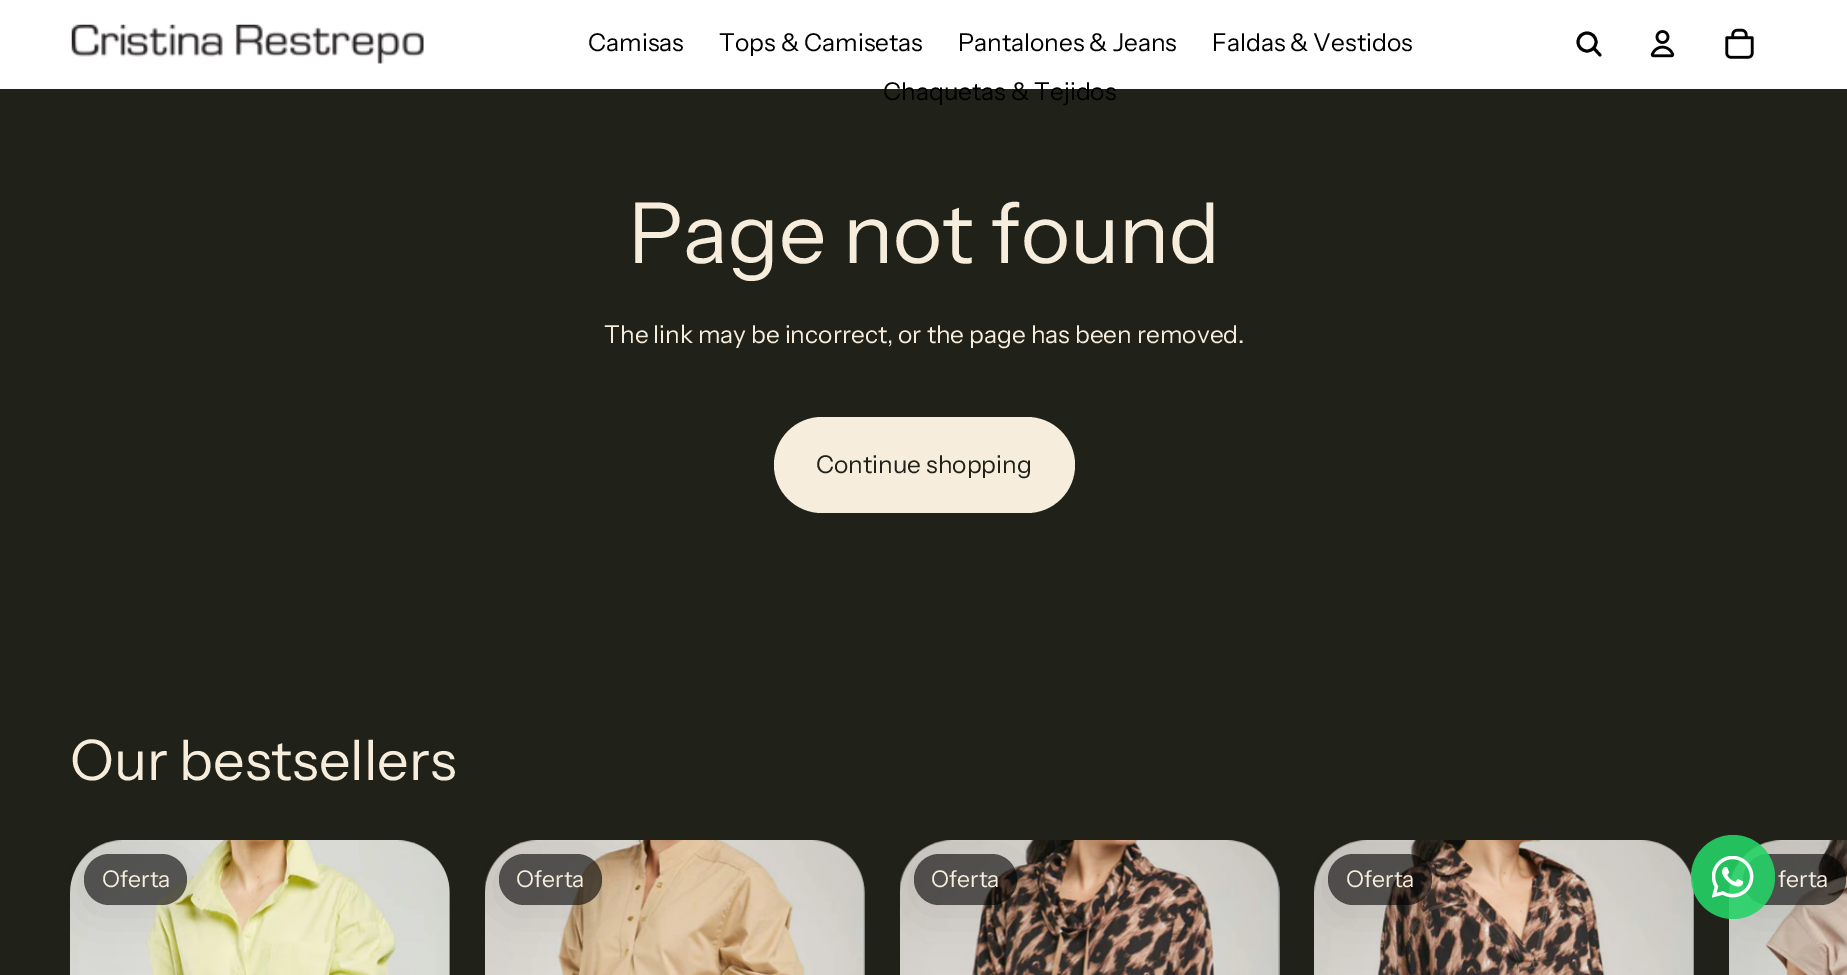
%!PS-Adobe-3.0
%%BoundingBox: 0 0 1847 975
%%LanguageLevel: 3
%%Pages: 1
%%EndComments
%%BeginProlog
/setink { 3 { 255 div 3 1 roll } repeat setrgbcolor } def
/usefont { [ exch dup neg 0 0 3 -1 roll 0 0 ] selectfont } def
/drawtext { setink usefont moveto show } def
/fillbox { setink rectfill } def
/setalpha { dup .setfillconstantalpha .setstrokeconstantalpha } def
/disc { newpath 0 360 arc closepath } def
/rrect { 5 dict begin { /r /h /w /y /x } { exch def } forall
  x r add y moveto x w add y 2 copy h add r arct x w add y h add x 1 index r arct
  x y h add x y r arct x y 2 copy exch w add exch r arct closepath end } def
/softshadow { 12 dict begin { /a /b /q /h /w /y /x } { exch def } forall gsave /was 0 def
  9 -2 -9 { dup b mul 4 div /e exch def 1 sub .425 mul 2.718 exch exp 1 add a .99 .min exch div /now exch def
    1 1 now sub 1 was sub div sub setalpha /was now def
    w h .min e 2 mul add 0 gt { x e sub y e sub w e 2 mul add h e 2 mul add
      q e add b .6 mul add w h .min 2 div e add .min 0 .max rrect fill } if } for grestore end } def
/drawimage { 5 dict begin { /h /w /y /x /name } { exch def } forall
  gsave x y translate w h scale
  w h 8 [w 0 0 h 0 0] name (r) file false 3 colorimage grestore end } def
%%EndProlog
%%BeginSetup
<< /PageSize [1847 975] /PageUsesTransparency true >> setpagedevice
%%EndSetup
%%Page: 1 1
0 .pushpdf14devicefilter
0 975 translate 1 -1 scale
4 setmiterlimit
0 0 1847 975 32 34 25 fillbox
0 0 1847 89 255 255 255 fillbox
(assets/img1.rgb) 71 24 353 40 drawimage
(Camisas) 588 51 /InstrumentSans-Regular 24.5 0 0 0 drawtext
(Tops & Camisetas) 719 51 /InstrumentSans-Regular 24.5 0 0 0 drawtext
(Pantalones & Jeans) 958 51 /InstrumentSans-Regular 24.5 0 0 0 drawtext
(Faldas & Vestidos) 1212 51 /InstrumentSans-Regular 24.5 0 0 0 drawtext
(Chaquetas & Tejidos) 883 100 /InstrumentSans-Regular 24.5 0 0 0 drawtext
2.9 setlinewidth
1587 42 9 disc stroke
1 setlinecap
1 setlinejoin
1594 48.5 moveto 1600 55 lineto stroke
(assets/img2.rgb) 1650 30 25 28 drawimage
(assets/img3.rgb) 1725 28 29 31 drawimage
(Page not found) 628 263 /InstrumentSans-Regular 84 246 237 221 drawtext
(The link may be incorrect, or the page has been removed.) 604 343 /InstrumentSans-Regular 24.5 246 237 221 drawtext
774 417 301 96 48 rrect fill
(Continue shopping) 816 473 /InstrumentSans-Regular 24.5 32 34 25 drawtext
(Our bestsellers) 70 780 /InstrumentSans-Regular 56 246 237 221 drawtext
(assets/img4.rgb) 70 840 380 135 drawimage
gsave
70 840 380 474 rectclip
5 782 moveto 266 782 lineto 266 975 lineto 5 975 lineto closepath 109.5 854 moveto 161.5 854 lineto 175.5 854 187 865.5 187 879.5 curveto 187 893.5 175.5 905 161.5 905 curveto 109.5 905 lineto 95.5 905 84 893.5 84 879.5 curveto 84 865.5 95.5 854 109.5 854 curveto closepath eoclip newpath
0 0 0 setink
84 861 103 51 25.5 26 0.1 softshadow
grestore
0.62 setalpha
0 0 0 setink
84 854 103 51 25.5 rrect fill
1 setalpha
(Oferta) 102 887 /InstrumentSans-Regular 23 246 237 221 drawtext
(assets/img5.rgb) 485 840 380 135 drawimage
gsave
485 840 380 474 rectclip
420 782 moveto 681 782 lineto 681 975 lineto 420 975 lineto closepath 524.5 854 moveto 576.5 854 lineto 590.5 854 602 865.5 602 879.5 curveto 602 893.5 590.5 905 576.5 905 curveto 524.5 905 lineto 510.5 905 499 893.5 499 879.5 curveto 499 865.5 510.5 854 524.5 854 curveto closepath eoclip newpath
0 0 0 setink
499 861 103 51 25.5 26 0.1 softshadow
grestore
0.62 setalpha
0 0 0 setink
499 854 103 51 25.5 rrect fill
1 setalpha
(Oferta) 516 887 /InstrumentSans-Regular 23 246 237 221 drawtext
(assets/img6.rgb) 900 840 380 135 drawimage
gsave
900 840 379 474 rectclip
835 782 moveto 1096 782 lineto 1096 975 lineto 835 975 lineto closepath 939.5 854 moveto 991.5 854 lineto 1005.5 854 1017 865.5 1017 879.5 curveto 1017 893.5 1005.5 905 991.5 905 curveto 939.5 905 lineto 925.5 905 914 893.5 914 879.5 curveto 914 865.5 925.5 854 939.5 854 curveto closepath eoclip newpath
0 0 0 setink
914 861 103 51 25.5 26 0.1 softshadow
grestore
0.62 setalpha
0 0 0 setink
914 854 103 51 25.5 rrect fill
1 setalpha
(Oferta) 931 887 /InstrumentSans-Regular 23 246 237 221 drawtext
(assets/img7.rgb) 1314 840 380 135 drawimage
gsave
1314 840 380 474 rectclip
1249 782 moveto 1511 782 lineto 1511 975 lineto 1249 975 lineto closepath 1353.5 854 moveto 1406.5 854 lineto 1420.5 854 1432 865.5 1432 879.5 curveto 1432 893.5 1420.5 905 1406.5 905 curveto 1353.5 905 lineto 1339.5 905 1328 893.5 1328 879.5 curveto 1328 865.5 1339.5 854 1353.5 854 curveto closepath eoclip newpath
0 0 0 setink
1328 861 104 51 25.5 26 0.1 softshadow
grestore
0.62 setalpha
0 0 0 setink
1328 854 104 51 25.5 rrect fill
1 setalpha
(Oferta) 1346 887 /InstrumentSans-Regular 23 246 237 221 drawtext
(assets/img8.rgb) 1729 840 118 135 drawimage
gsave
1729 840 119 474 rectclip
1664 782 moveto 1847 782 lineto 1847 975 lineto 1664 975 lineto closepath 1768.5 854 moveto 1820.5 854 lineto 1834.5 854 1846 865.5 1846 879.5 curveto 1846 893.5 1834.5 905 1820.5 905 curveto 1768.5 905 lineto 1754.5 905 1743 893.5 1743 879.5 curveto 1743 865.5 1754.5 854 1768.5 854 curveto closepath eoclip newpath
0 0 0 setink
1743 861 103 51 25.5 26 0.1 softshadow
grestore
0.62 setalpha
0 0 0 setink
1743 854 103 51 25.5 rrect fill
1 setalpha
(ferta) 1778 887 /InstrumentSans-Regular 23 246 237 221 drawtext
0.89 setalpha
37 211 102 setink
1733 877 42 disc fill
1 setalpha
(assets/img9.rgb) 1712 856 42 42 drawimage
.poppdf14devicefilter showpage
%%EOF
